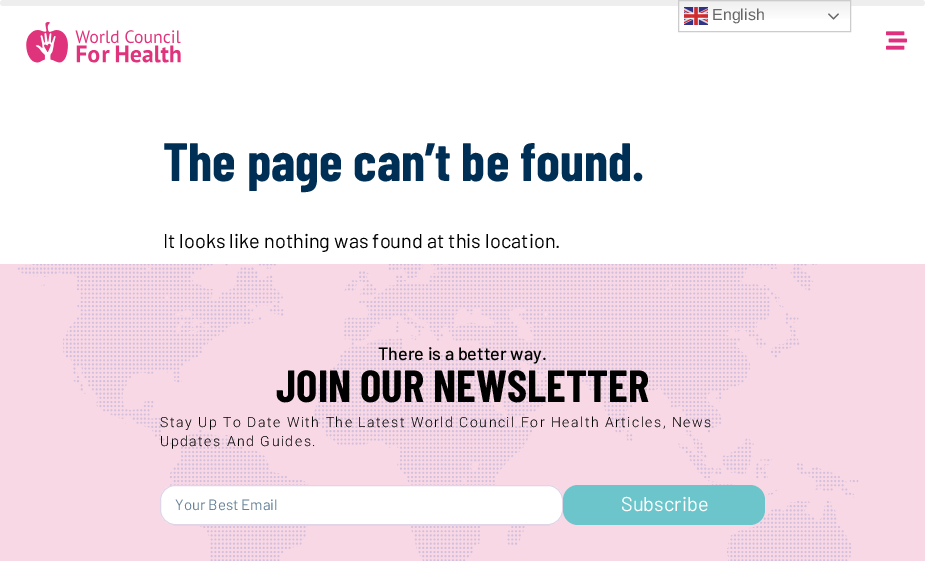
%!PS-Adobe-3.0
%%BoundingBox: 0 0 925 561
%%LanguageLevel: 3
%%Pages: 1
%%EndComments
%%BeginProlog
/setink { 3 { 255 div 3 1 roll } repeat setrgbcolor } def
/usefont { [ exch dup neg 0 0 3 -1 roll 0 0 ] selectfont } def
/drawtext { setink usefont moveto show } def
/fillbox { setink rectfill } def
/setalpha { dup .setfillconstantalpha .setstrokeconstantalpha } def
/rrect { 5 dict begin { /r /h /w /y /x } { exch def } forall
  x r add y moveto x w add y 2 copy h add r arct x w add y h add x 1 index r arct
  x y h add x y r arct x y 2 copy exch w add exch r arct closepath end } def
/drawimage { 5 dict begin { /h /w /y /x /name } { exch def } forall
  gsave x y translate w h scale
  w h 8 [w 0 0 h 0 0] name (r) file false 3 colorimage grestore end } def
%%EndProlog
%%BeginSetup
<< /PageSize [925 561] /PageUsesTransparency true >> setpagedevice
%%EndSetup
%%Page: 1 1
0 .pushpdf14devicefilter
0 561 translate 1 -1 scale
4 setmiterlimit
0 0 925 561 255 255 255 fillbox
238 238 238 setink
0 0 925 6 3 rrect fill
(assets/img1.rgb) 26 22 155 41 drawimage
(assets/img2.rgb) 886 31 21 19 drawimage
gsave 679 2 moveto 850 2 lineto 850 19 lineto 679 19 lineto closepath clip newpath
<< /ShadingType 2 /ColorSpace /DeviceRGB /Coords [765 0 765 32] /Extend [true true] /Function << /FunctionType 3 /Domain [0 1] /Functions [<< /FunctionType 2 /Domain [0 1] /C0 [0.937 0.937 0.937] /C1 [1 1 1] /N 1 >> << /FunctionType 2 /Domain [0 1] /C0 [1 1 1] /C1 [1 1 1] /N 1 >>] /Bounds [0.7] /Encode [0 1 0 1] >> >> shfill grestore
204 204 204 setink
678.5 0.5 172 31 rectstroke
(assets/img3.rgb) 684 7 24 18 drawimage
(English) 712 20 /LiberationSans-Regular 16 102 102 102 drawtext
(assets/img4.rgb) 828 13 11 7 drawimage
(The page can’t be found.) 163 181 /BarlowCondensed-Bold 54 0 47 86 drawtext
(It looks like nothing was found at this location.) 163 248 /Barlow-Regular 20 0 0 0 drawtext
0 264 925 297 248 216 228 fillbox
(assets/img5.rgb) 17 264 842 297 drawimage
(There is a better way.) 378 360 /Barlow-Medium 18 0 0 0 drawtext
(JOIN OUR NEWSLETTER) 276 402 /BarlowCondensed-Bold 45 0 0 0 drawtext
/Roboto-Light 14 usefont
160 427 moveto 1.53 0 (Stay Up To Date With The Latest World Council For Health Articles, News) ashow
160 446 moveto 1.53 0 (Updates And Guides.) ashow
255 255 255 setink
160 485 403 40 15 rrect fill
0.28 setalpha
142 99 170 setink
160.5 485.5 402 39 14.5 rrect stroke
1 setalpha
(Your Best Email) 175 510 /Barlow-Regular 15 102 130 154 drawtext
109 197 204 setink
563 485 202 40 15 rrect fill
(Subscribe) 621 511 /Barlow-Regular 20 255 255 255 drawtext
.poppdf14devicefilter showpage
%%EOF
